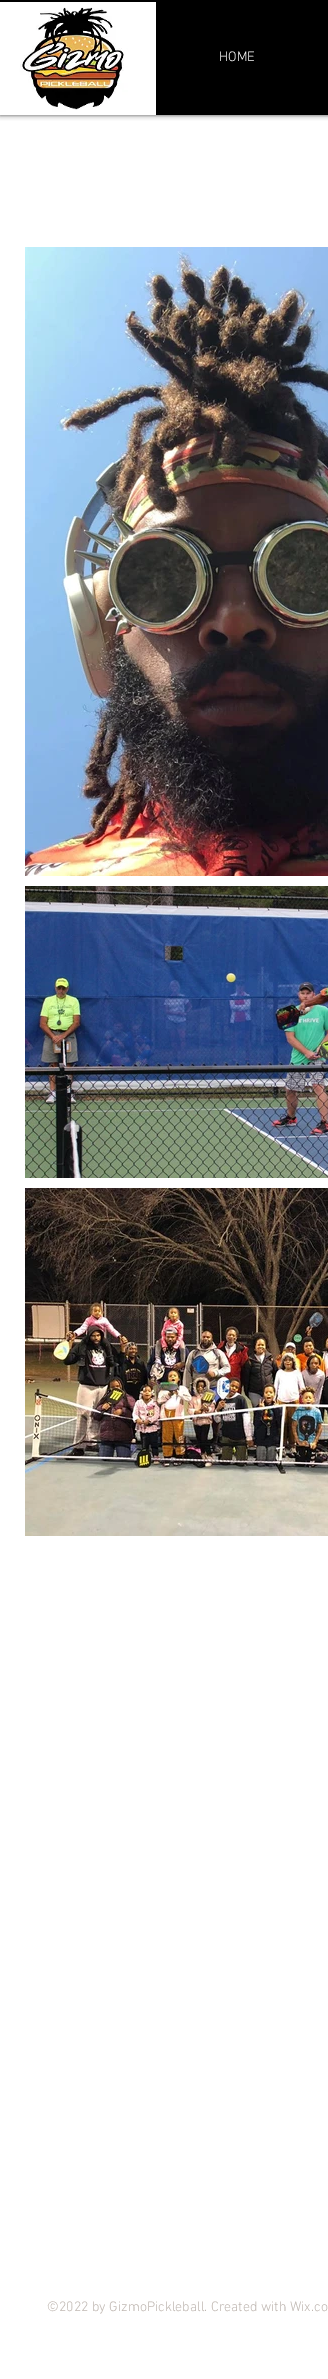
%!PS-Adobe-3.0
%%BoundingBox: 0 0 328 2379
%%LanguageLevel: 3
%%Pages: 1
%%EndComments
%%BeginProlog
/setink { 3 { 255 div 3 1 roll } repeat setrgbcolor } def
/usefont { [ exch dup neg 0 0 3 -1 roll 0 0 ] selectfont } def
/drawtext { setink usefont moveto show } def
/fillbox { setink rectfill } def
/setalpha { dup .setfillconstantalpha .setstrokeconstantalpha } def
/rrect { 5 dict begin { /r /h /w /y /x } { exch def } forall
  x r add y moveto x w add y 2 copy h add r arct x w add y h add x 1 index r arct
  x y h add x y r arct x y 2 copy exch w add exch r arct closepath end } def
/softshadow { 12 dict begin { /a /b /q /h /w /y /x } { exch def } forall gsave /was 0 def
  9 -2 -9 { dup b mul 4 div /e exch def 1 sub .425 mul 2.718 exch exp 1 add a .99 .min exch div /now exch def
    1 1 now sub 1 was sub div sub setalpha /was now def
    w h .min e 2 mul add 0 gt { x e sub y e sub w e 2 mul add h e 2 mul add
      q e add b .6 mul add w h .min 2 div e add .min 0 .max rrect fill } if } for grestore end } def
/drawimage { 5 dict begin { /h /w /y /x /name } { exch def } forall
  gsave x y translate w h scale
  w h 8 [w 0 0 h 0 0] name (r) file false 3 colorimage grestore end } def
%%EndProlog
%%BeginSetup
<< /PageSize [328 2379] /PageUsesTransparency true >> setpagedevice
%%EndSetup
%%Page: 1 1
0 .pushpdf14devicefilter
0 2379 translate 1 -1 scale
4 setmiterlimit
0 0 328 2379 255 255 255 fillbox
0 0 0 setink
0 0 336 115 0 2.5 0.7 softshadow
0 0 328 115 0 0 0 fillbox
(assets/img1.rgb) 0 2 156 113 drawimage
(HOME) 219 61 /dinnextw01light-Light 14 255 255 255 drawtext
(assets/img2.rgb) 25 247 303 629 drawimage
(assets/img3.rgb) 25 886 303 292 drawimage
(assets/img4.rgb) 25 1188 303 348 drawimage
(©2022 by GizmoPickleball. Created with Wix.co) 47 2311 /dinnextw01light-Light 14 190 182 176 drawtext
.poppdf14devicefilter showpage
%%EOF
